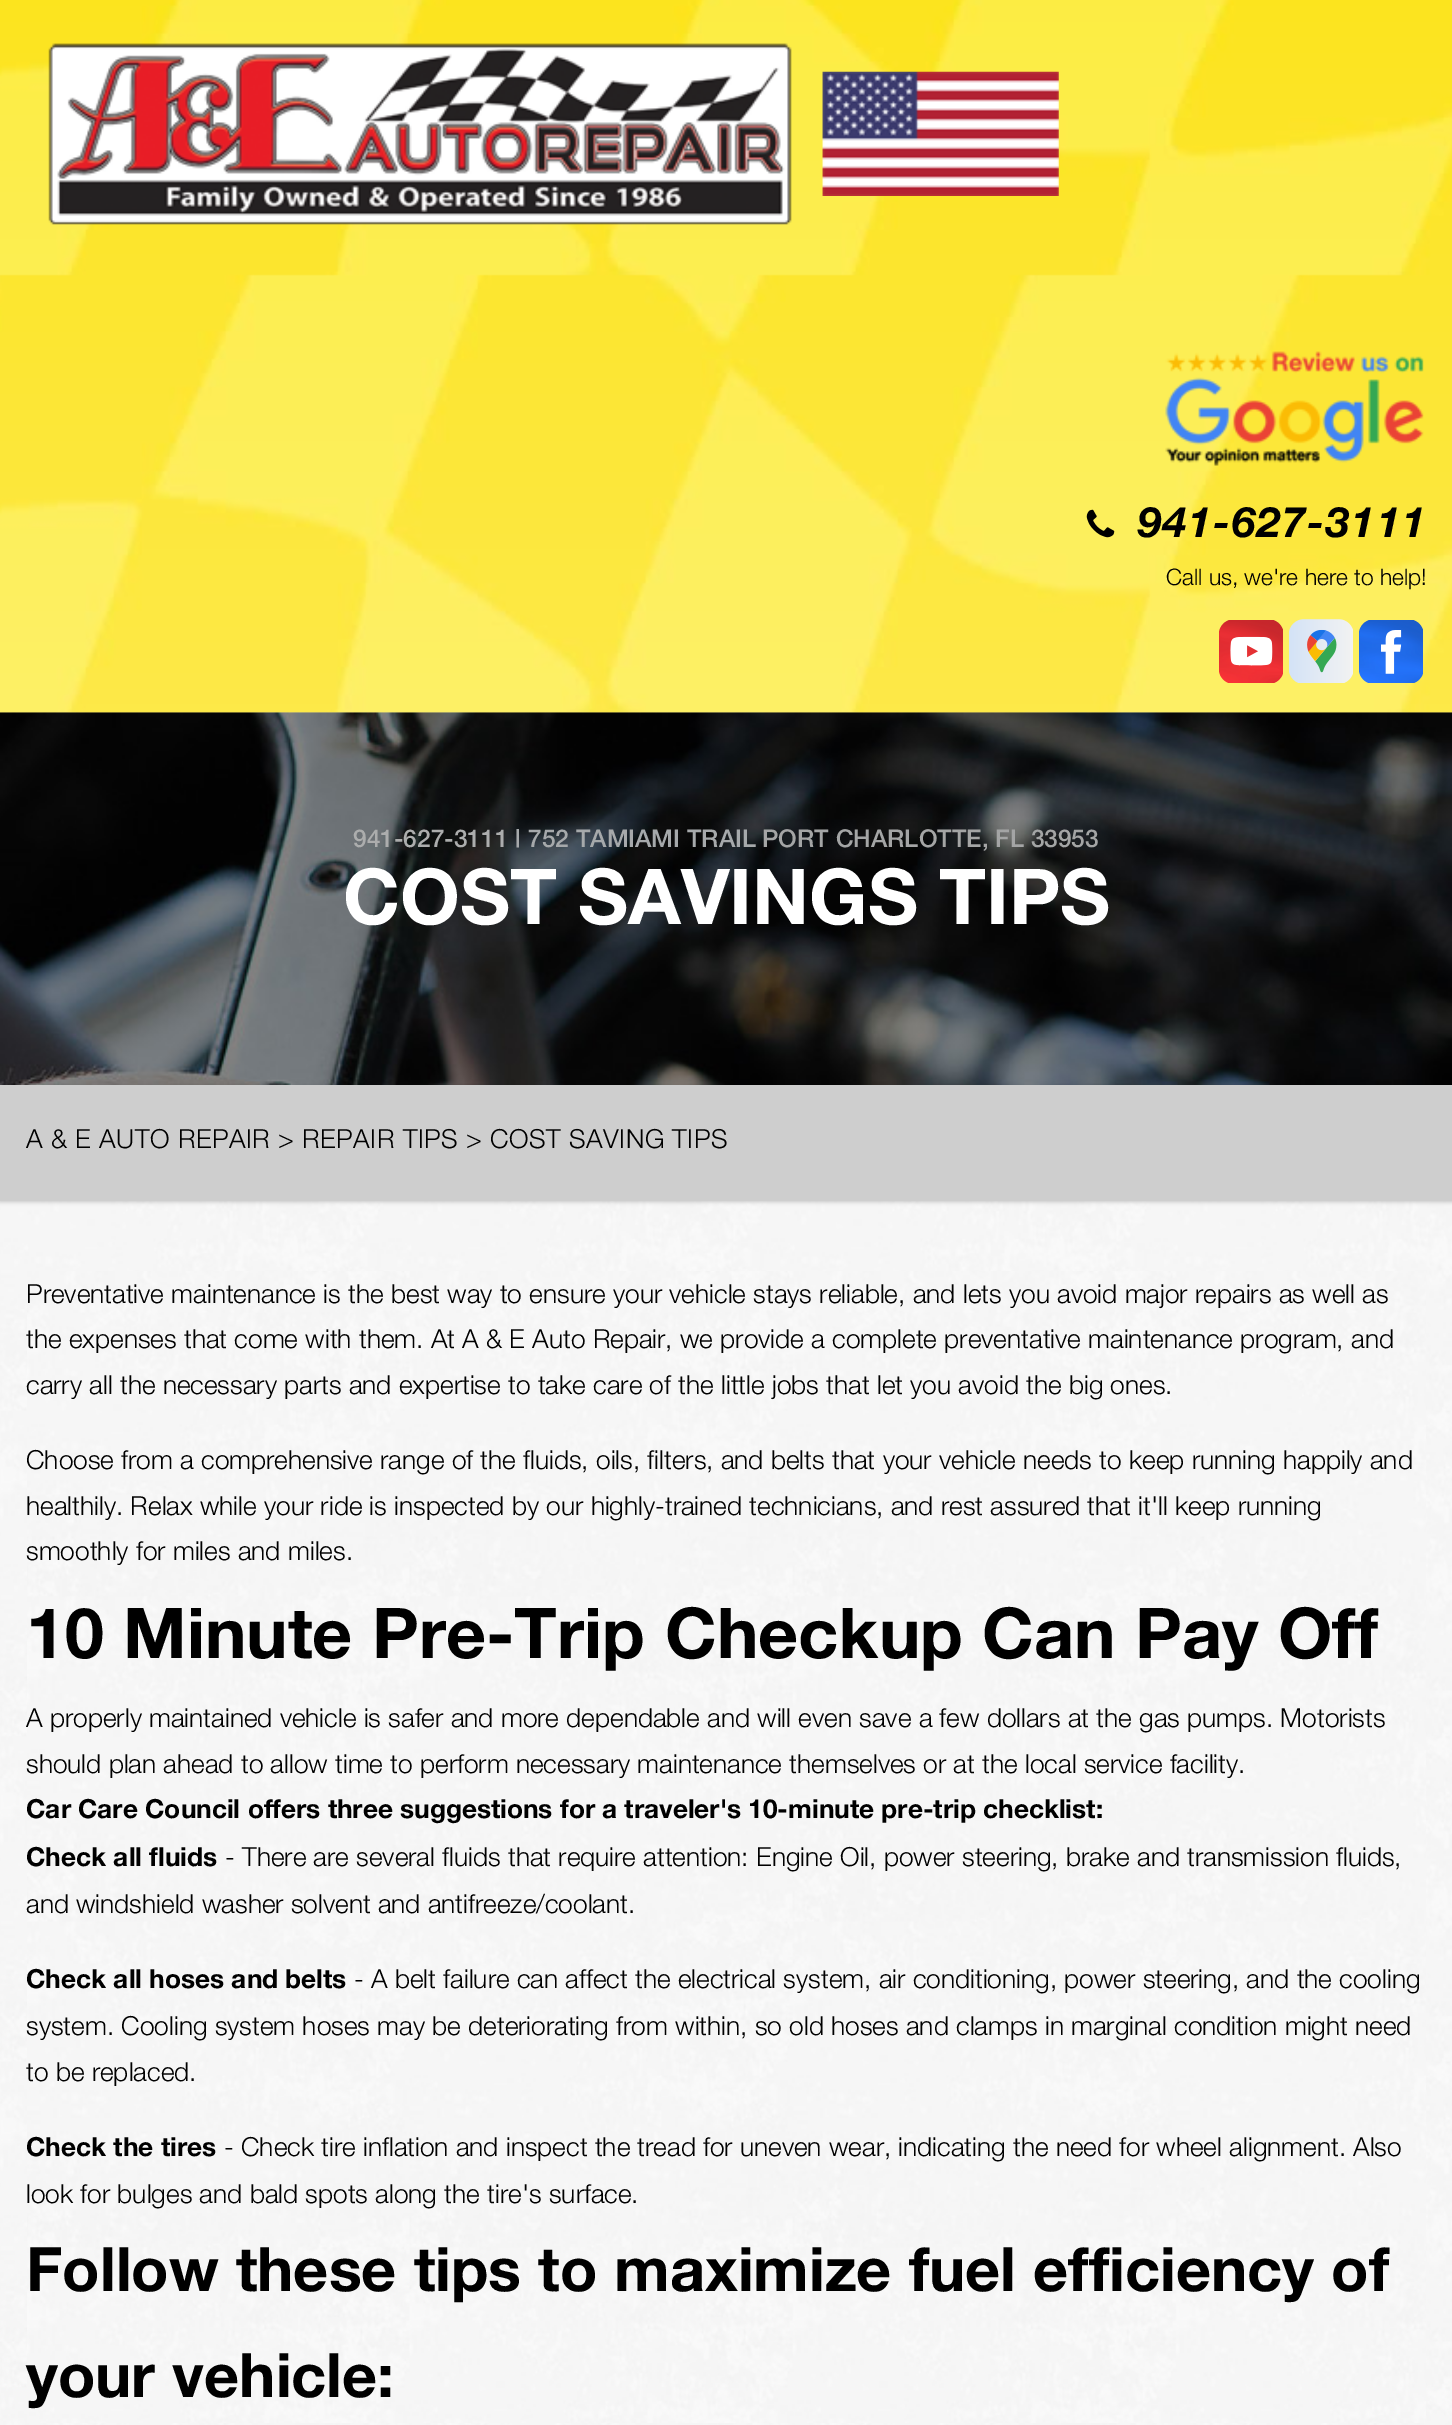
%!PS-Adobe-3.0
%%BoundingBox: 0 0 1452 2425
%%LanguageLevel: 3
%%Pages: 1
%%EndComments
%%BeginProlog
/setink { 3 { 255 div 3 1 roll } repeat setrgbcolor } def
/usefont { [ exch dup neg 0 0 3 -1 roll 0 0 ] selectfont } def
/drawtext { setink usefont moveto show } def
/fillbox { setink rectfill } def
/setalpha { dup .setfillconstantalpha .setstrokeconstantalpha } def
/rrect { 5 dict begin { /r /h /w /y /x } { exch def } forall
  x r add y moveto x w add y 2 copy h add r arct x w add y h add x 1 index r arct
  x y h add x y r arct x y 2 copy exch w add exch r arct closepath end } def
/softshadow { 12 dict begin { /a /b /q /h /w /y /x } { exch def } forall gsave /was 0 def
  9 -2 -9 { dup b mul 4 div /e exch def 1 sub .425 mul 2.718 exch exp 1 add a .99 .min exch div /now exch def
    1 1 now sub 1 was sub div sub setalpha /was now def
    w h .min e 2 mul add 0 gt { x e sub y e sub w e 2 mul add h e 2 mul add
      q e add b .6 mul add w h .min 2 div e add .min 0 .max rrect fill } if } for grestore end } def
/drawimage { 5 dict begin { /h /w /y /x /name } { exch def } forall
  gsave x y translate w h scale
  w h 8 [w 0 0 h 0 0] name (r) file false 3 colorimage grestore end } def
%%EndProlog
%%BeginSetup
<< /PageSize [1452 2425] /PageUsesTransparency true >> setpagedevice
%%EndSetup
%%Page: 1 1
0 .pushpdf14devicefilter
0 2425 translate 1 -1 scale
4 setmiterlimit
0 0 1452 2425 255 255 255 fillbox
(assets/img1.rgb) 0 712 1452 1 drawimage
(assets/img10.rgb) 0 712 1452 373 drawimage
(assets/img2.rgb) 0 0 1452 713 drawimage
(assets/img3.rgb) 48 43 744 182 drawimage
(assets/img4.rgb) 822 71 237 125 drawimage
(assets/img5.rgb) 1165 351 259 115 drawimage
(assets/img6.rgb) 1086 509 29 29 drawimage
/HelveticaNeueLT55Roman-BoldItalic 42 usefont
0 0 0 setink
1138 537 moveto 1.75 0 (941-627-3111) ashow
(Call us, we're here to help!) 1166 585 /HelveticaNeue-Light 22.75 0 0 0 drawtext
(assets/img7.rgb) 1219 620 64 63 drawimage
(assets/img8.rgb) 1289 619 64 64 drawimage
(assets/img9.rgb) 1359 620 64 63 drawimage
(941-627-3111) 353 847 /HelveticaNeue-Medium 24.5 172 173 173 drawtext
(|) 515 847 /HelveticaNeue-Medium 24.5 166 169 171 drawtext
(752 TAMIAMI TRAIL) 528 847 /HelveticaNeue-Medium 24.5 166 169 171 drawtext
(PORT CHARLOTTE, FL 33953) 762 847 /HelveticaNeue-Medium 24.5 164 165 165 drawtext
(COST SAVINGS TIPS) 343 924 /HelveticaNeue-Bold 77 255 255 255 drawtext
(assets/img11.rgb) 0 1201 1452 1224 drawimage
0 0 0 setink
0 1087 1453 115 0 2 0.2 softshadow
0 1085 1452 116 206 206 206 fillbox
/HelveticaNeue-Light 26.25 usefont
0 0 0 setink
26 1148 moveto 0.53 0 (A & E AUTO REPAIR > REPAIR TIPS > COST SAVING TIPS) ashow
(assets/img12.rgb) 27 1271 1399 1152 drawimage
(Preventative maintenance is the best way to ensure your vehicle stays reliable, and lets you avoid major repairs as well as) 26 1303 /HelveticaNeue-Light 26.25 0 0 0 drawtext
(the expenses that come with them. At A & E Auto Repair, we provide a complete preventative maintenance program, and) 26 1348 /HelveticaNeue-Light 26.25 0 0 0 drawtext
(carry all the necessary parts and expertise to take care of the little jobs that let you avoid the big ones.) 26 1394 /HelveticaNeue-Light 26.25 0 0 0 drawtext
(Choose from a comprehensive range of the fluids, oils, filters, and belts that your vehicle needs to keep running happily and) 26 1469 /HelveticaNeue-Light 26.25 0 0 0 drawtext
(healthily. Relax while your ride is inspected by our highly-trained technicians, and rest assured that it'll keep running) 26 1515 /HelveticaNeue-Light 26.25 0 0 0 drawtext
(smoothly for miles and miles.) 26 1560 /HelveticaNeue-Light 26.25 0 0 0 drawtext
(10 Minute Pre-Trip Checkup Can Pay Off) 26 1658 /HelveticaNeue-Bold 70 0 0 0 drawtext
(A properly maintained vehicle is safer and more dependable and will even save a few dollars at the gas pumps. Motorists) 26 1727 /HelveticaNeue-Light 26.25 0 0 0 drawtext
(should plan ahead to allow time to perform necessary maintenance themselves or at the local service facility.) 26 1773 /HelveticaNeue-Light 26.25 0 0 0 drawtext
(Car Care Council offers three suggestions for a traveler's 10-minute pre-trip checklist:) 26 1818 /HelveticaNeue-Bold 26.25 0 0 0 drawtext
(Check all fluids) 26 1866 /HelveticaNeue-Bold 26.25 0 0 0 drawtext
(- There are several fluids that require attention: Engine Oil, power steering, brake and transmission fluids,) 225 1866 /HelveticaNeue-Light 26.25 0 0 0 drawtext
(and windshield washer solvent and antifreeze/coolant.) 26 1913 /HelveticaNeue-Light 26.25 0 0 0 drawtext
(Check all hoses and belts) 26 1988 /HelveticaNeue-Bold 26.25 0 0 0 drawtext
(- A belt failure can affect the electrical system, air conditioning, power steering, and the cooling) 354 1988 /HelveticaNeue-Light 26.25 0 0 0 drawtext
(system. Cooling system hoses may be deteriorating from within, so old hoses and clamps in marginal condition might need) 26 2035 /HelveticaNeue-Light 26.25 0 0 0 drawtext
(to be replaced.) 26 2081 /HelveticaNeue-Light 26.25 0 0 0 drawtext
(Check the tires) 26 2156 /HelveticaNeue-Bold 26.25 0 0 0 drawtext
(- Check tire inflation and inspect the tread for uneven wear, indicating the need for wheel alignment. Also) 224 2156 /HelveticaNeue-Light 26.25 0 0 0 drawtext
(look for bulges and bald spots along the tire's surface.) 26 2203 /HelveticaNeue-Light 26.25 0 0 0 drawtext
(Follow these tips to maximize fuel efficiency of) 26 2291 /HelveticaNeue-Bold 61.25 0 0 0 drawtext
(your vehicle:) 26 2397 /HelveticaNeue-Bold 61.25 0 0 0 drawtext
.poppdf14devicefilter showpage
%%EOF
